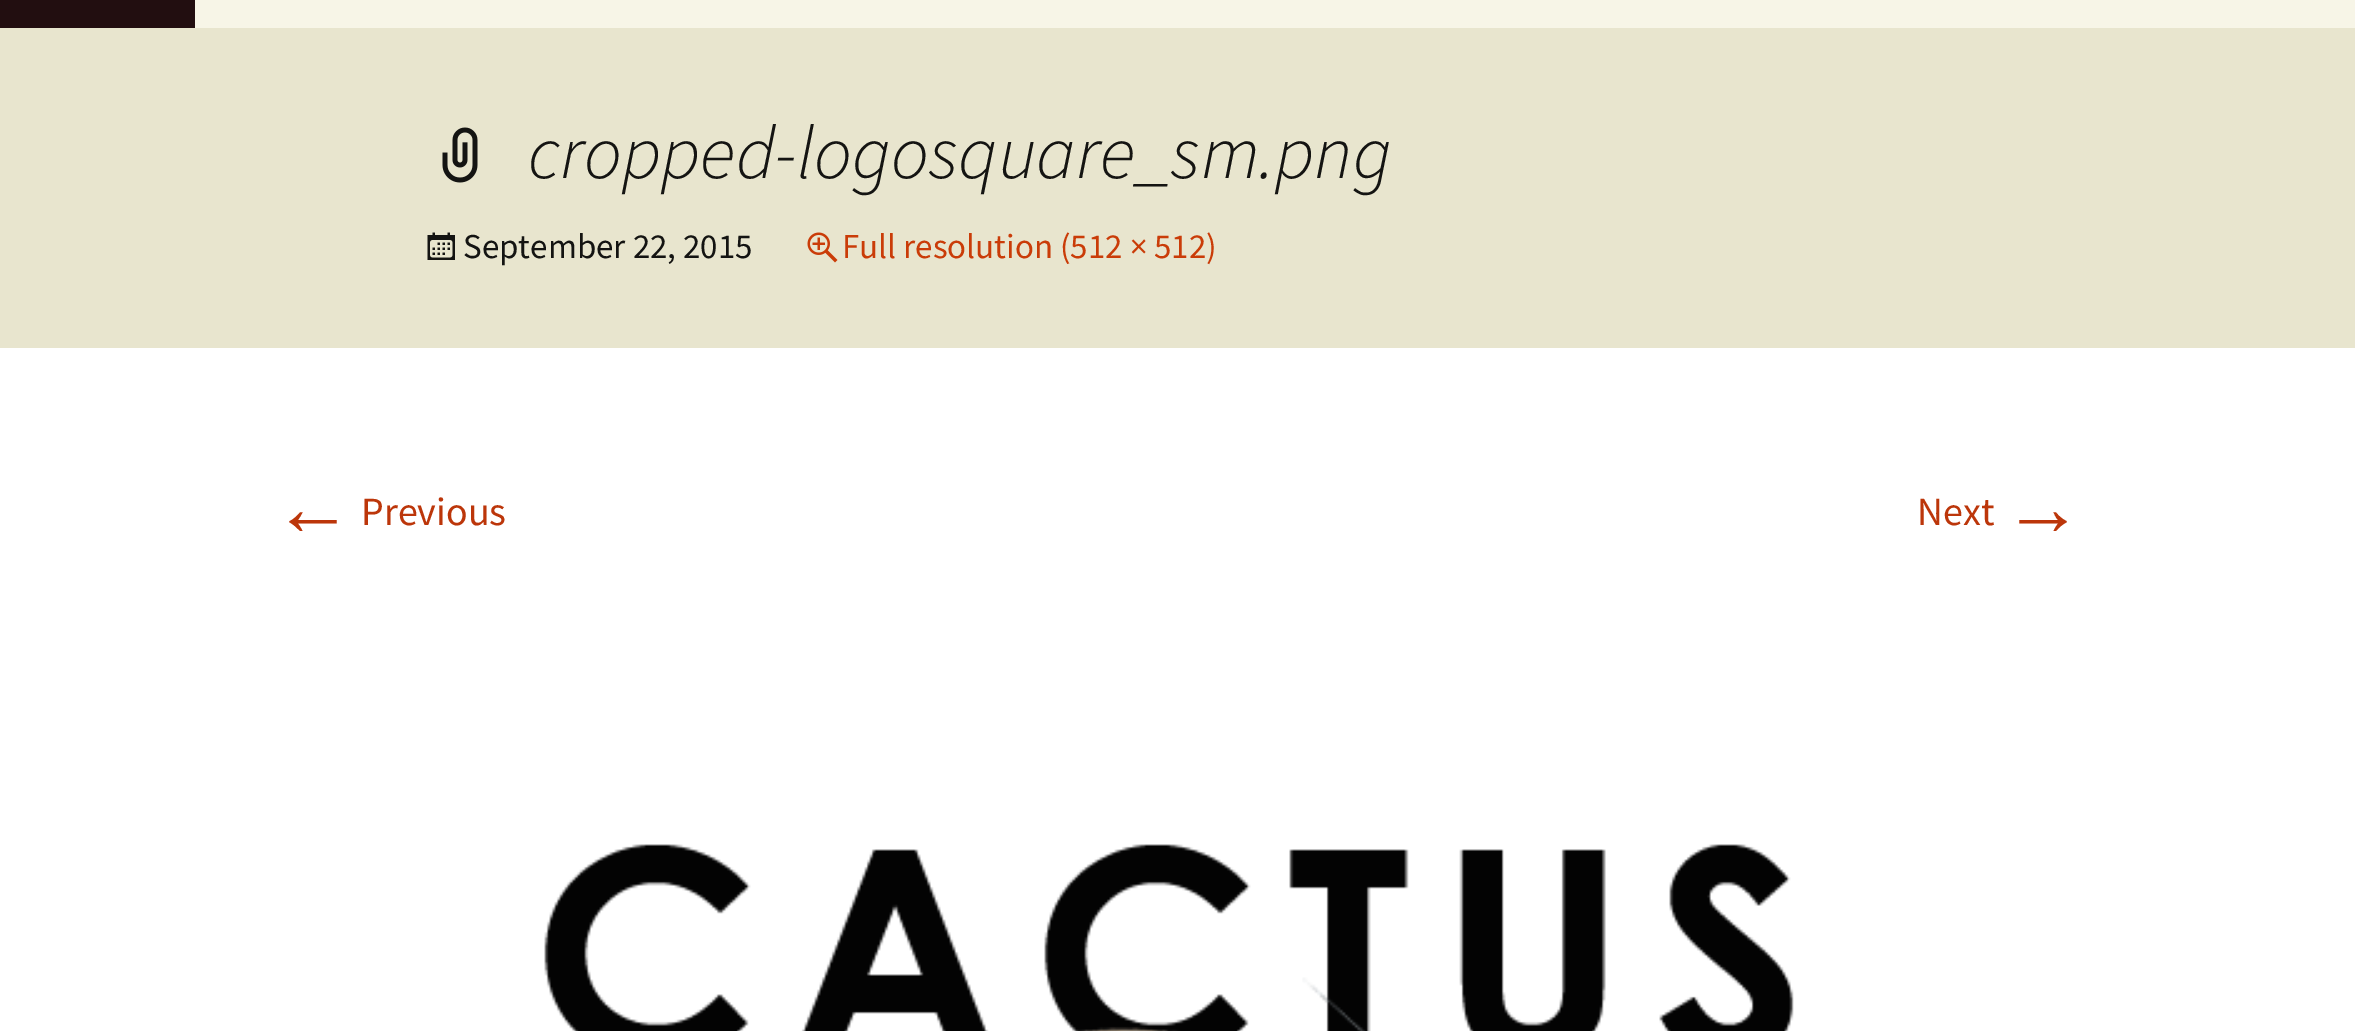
%!PS-Adobe-3.0
%%BoundingBox: 0 0 2355 1031
%%LanguageLevel: 3
%%Pages: 1
%%EndComments
%%BeginProlog
/setink { 3 { 255 div 3 1 roll } repeat setrgbcolor } def
/usefont { [ exch dup neg 0 0 3 -1 roll 0 0 ] selectfont } def
/drawtext { setink usefont moveto show } def
/fillbox { setink rectfill } def
/drawimage { 5 dict begin { /h /w /y /x /name } { exch def } forall
  gsave x y translate w h scale
  w h 8 [w 0 0 h 0 0] name (r) file false 3 colorimage grestore end } def
%%EndProlog
%%BeginSetup
<< /PageSize [2355 1031] >> setpagedevice
%%EndSetup
%%Page: 1 1
0 1031 translate 1 -1 scale
4 setmiterlimit
0 0 2355 1031 247 245 231 fillbox
0 0 195 28 34 14 16 fillbox
0 28 2355 320 232 229 206 fillbox
(assets/img1.rgb) 442 127 36 56 drawimage
(cropped-logosquare_sm.png) 528 178 /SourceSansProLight-LightItalic 75 20 20 18 drawtext
(assets/img2.rgb) 427 232 28 28 drawimage
(September 22, 2015) 463 258 /SourceSansPro-Regular 35 20 20 18 drawtext
(assets/img3.rgb) 807 232 31 31 drawimage
(Full resolution \(512 × 512\)) 842 258 /SourceSansPro-Regular 35 202 60 8 drawtext
0 348 2355 683 255 255 255 fillbox
(←) 273 535 /LiberationSans-Regular 80 188 54 10 drawtext
(Previous) 361 525 /SourceSansPro-Regular 40 188 54 10 drawtext
(Next) 1917 525 /SourceSansPro-Regular 40 188 54 10 drawtext
(→) 2003 535 /LiberationSans-Regular 80 188 54 10 drawtext
(assets/img4.rgb) 544 844 1250 187 drawimage
showpage
%%EOF
